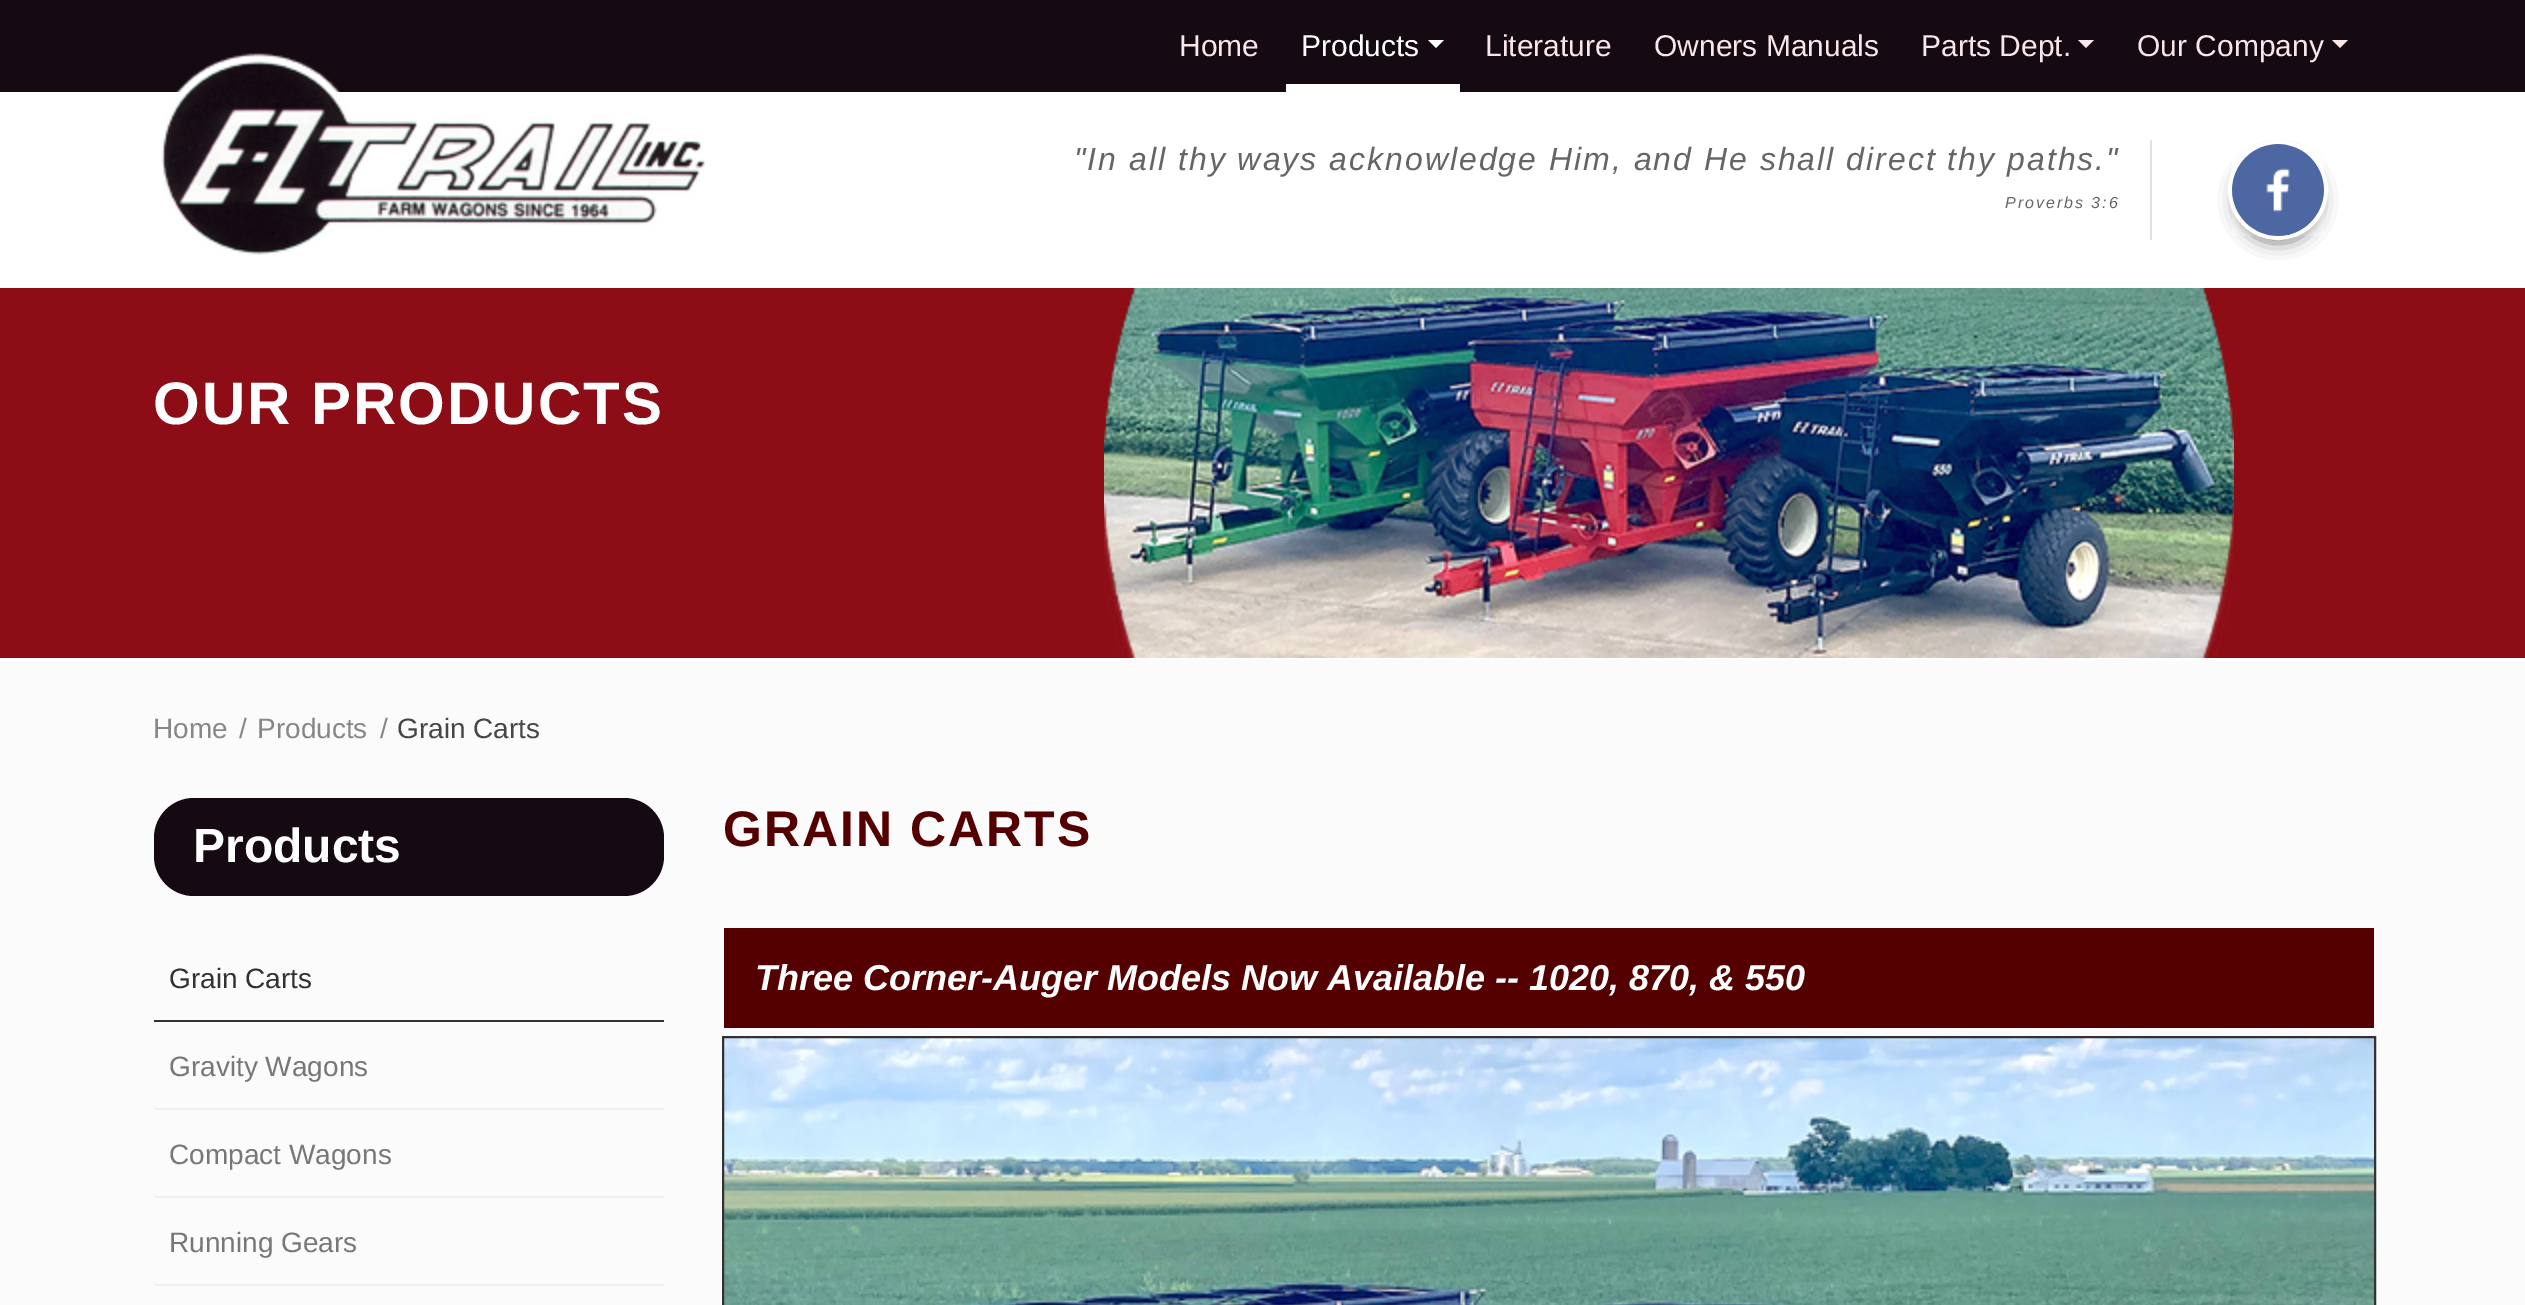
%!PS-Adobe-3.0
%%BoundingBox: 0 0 2525 1305
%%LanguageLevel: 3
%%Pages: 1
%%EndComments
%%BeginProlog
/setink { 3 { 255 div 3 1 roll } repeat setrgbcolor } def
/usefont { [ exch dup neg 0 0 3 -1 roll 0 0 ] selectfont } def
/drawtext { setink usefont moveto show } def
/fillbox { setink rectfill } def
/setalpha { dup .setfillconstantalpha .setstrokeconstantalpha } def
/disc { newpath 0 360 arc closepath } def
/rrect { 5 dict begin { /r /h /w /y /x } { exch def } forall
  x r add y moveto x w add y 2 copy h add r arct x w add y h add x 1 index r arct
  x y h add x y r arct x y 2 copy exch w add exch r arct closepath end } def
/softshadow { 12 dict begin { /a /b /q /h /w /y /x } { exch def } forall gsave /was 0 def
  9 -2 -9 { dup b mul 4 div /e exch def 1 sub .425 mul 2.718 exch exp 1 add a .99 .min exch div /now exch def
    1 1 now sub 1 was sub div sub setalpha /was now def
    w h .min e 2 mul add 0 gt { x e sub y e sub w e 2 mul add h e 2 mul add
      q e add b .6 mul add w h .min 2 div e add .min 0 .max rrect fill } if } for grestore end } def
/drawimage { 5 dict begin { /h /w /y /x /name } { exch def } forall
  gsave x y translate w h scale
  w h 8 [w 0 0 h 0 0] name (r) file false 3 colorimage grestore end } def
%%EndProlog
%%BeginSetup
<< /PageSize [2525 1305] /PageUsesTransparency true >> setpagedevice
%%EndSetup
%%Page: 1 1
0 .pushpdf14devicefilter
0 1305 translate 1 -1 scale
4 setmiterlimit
0 0 2525 1305 251 251 251 fillbox
0 92 2525 196 255 255 255 fillbox
0 0 2525 92 22 10 18 fillbox
(Home) 1179 56 /LiberationSans-Regular 30 249 230 232 drawtext
1286 84 174 8 255 255 255 fillbox
(Products) 1301 56 /LiberationSans-Regular 30 255 255 255 drawtext
1428 40 moveto 1444 40 lineto 1436 48 lineto closepath fill
(Literature) 1485 56 /LiberationSans-Regular 30 249 230 232 drawtext
(Owners Manuals) 1654 56 /LiberationSans-Regular 30 249 230 232 drawtext
(Parts Dept.) 1921 56 /LiberationSans-Regular 30 249 230 232 drawtext
2078 40 moveto 2094 40 lineto 2086 48 lineto closepath fill
(Our Company) 2137 56 /LiberationSans-Regular 30 249 230 232 drawtext
2332 40 moveto 2348 40 lineto 2340 48 lineto closepath fill
(assets/img1.rgb) 161 53 544 202 drawimage
/LiberationSans-Italic 32 usefont
101 101 101 setink
1074 170 moveto 2 0 ("In all thy ways acknowledge Him, and He shall direct thy paths.") ashow
/LiberationSans-Italic 16 usefont
2005 208 moveto 2 0 (Proverbs 3:6) ashow
2150 140 2 100 222 226 230 fillbox
44 44 44 setink
2240 162 76 76 38 10 1 softshadow
255 255 255 setink
4 setlinewidth
2278 190 48 disc stroke
(assets/img2.rgb) 2232 144 92 92 drawimage
0 288 2525 370 141 13 22 fillbox
/LiberationSans-Bold 60 usefont
255 255 255 setink
153 424 moveto 2 0 (OUR PRODUCTS) ashow
(assets/img3.rgb) 1104 288 1130 370 drawimage
0 658 2525 2 255 255 255 fillbox
(Home) 153 738 /LiberationSans-Regular 28 135 135 135 drawtext
(/) 239 738 /LiberationSans-Regular 28 135 135 135 drawtext
(Products) 257 738 /LiberationSans-Regular 28 135 135 135 drawtext
(/) 380 738 /LiberationSans-Regular 28 135 135 135 drawtext
(Grain Carts) 397 738 /LiberationSans-Regular 28 70 70 70 drawtext
22 10 18 setink
154 798 510 98 40 rrect fill
(Products) 193 862 /LiberationSans-Bold 48 255 255 255 drawtext
154 1020 510 2 50 50 50 fillbox
(Grain Carts) 169 988 /LiberationSans-Regular 28 50 50 50 drawtext
154 1108 510 2 240 240 240 fillbox
(Gravity Wagons) 169 1076 /LiberationSans-Regular 28 119 119 119 drawtext
154 1196 510 2 240 240 240 fillbox
(Compact Wagons) 169 1164 /LiberationSans-Regular 28 119 119 119 drawtext
154 1284 510 2 240 240 240 fillbox
(Running Gears) 169 1252 /LiberationSans-Regular 28 119 119 119 drawtext
/LiberationSans-Bold 50 usefont
85 0 0 setink
723 846 moveto 2 0 (GRAIN CARTS) ashow
724 928 1650 100 85 0 0 fillbox
(Three Corner-Auger Models Now Available -- 1020, 870, & 550) 755 990 /LiberationSans-BoldItalic 36 255 255 255 drawtext
(assets/img4.rgb) 724 1038 1650 267 drawimage
50 50 50 setink
2 setlinewidth
723 1037 1652 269 rectstroke
.poppdf14devicefilter showpage
%%EOF
